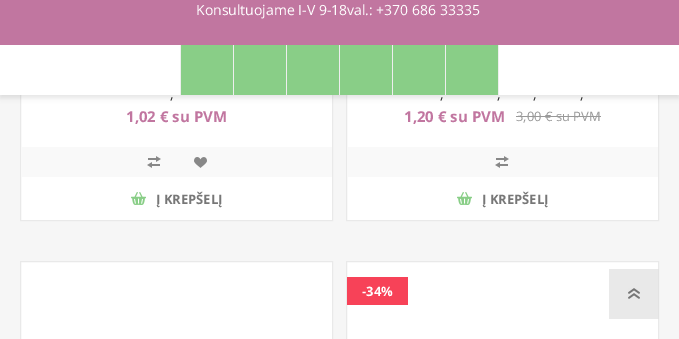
%!PS-Adobe-3.0
%%BoundingBox: 0 0 679 339
%%LanguageLevel: 3
%%Pages: 1
%%EndComments
%%BeginProlog
/setink { 3 { 255 div 3 1 roll } repeat setrgbcolor } def
/usefont { [ exch dup neg 0 0 3 -1 roll 0 0 ] selectfont } def
/drawtext { setink usefont moveto show } def
/fillbox { setink rectfill } def
/setalpha { dup .setfillconstantalpha .setstrokeconstantalpha } def
/rrect { 5 dict begin { /r /h /w /y /x } { exch def } forall
  x r add y moveto x w add y 2 copy h add r arct x w add y h add x 1 index r arct
  x y h add x y r arct x y 2 copy exch w add exch r arct closepath end } def
/softshadow { 12 dict begin { /a /b /q /h /w /y /x } { exch def } forall gsave /was 0 def
  9 -2 -9 { dup b mul 4 div /e exch def 1 sub .425 mul 2.718 exch exp 1 add a .99 .min exch div /now exch def
    1 1 now sub 1 was sub div sub setalpha /was now def
    w h .min e 2 mul add 0 gt { x e sub y e sub w e 2 mul add h e 2 mul add
      q e add b .6 mul add w h .min 2 div e add .min 0 .max rrect fill } if } for grestore end } def
/drawimage { 5 dict begin { /h /w /y /x /name } { exch def } forall
  gsave x y translate w h scale
  w h 8 [w 0 0 h 0 0] name (r) file false 3 colorimage grestore end } def
%%EndProlog
%%BeginSetup
<< /PageSize [679 339] /PageUsesTransparency true >> setpagedevice
%%EndSetup
%%Page: 1 1
0 .pushpdf14devicefilter
0 339 translate 1 -1 scale
4 setmiterlimit
0 0 679 339 246 246 246 fillbox
21 95 311 125 255 255 255 fillbox
233 233 233 setink
20.5 -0.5 312 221 rectstroke
347 95 311 125 255 255 255 fillbox
233 233 233 setink
346.5 -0.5 312 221 rectstroke
0 0 0 setink
0 45 679 53 0 2.5 0.1 softshadow
0 45 679 50 255 255 255 fillbox
0 0 679 45 193 118 160 fillbox
181 45 52 50 137 206 135 fillbox
233 45 1 50 238 238 238 fillbox
180 45 1 50 238 238 238 fillbox
234 45 52 50 137 206 135 fillbox
286 45 1 50 238 238 238 fillbox
287 45 52 50 137 206 135 fillbox
339 45 1 50 238 238 238 fillbox
340 45 52 50 137 206 135 fillbox
392 45 1 50 238 238 238 fillbox
393 45 52 50 137 206 135 fillbox
445 45 1 50 238 238 238 fillbox
446 45 52 50 137 206 135 fillbox
498 45 1 50 238 238 238 fillbox
(Konsultuojame I-V 9-18val.: +370 686 33335) 196 15 /OpenSans-Regular 14 255 255 255 drawtext
(,) 170 99 /OpenSans-Regular 14 51 51 51 drawtext
(1,02 € su PVM) 126 122 /OpenSans-Bold 15 193 118 160 drawtext
21 147 311 30 249 249 249 fillbox
147 156 14 12 136 136 136 fillbox
(assets/img1.rgb) 139 147 30 30 drawimage
194 157 13 11 136 136 136 fillbox
(assets/img2.rgb) 185 147 30 30 drawimage
131 192 15 13 137 206 135 fillbox
(assets/img3.rgb) 131 190 15 18 drawimage
(Į KREPŠELĮ) 156 204 /OpenSans-Bold 13 119 119 119 drawtext
(,) 440 99 /OpenSans-Regular 14 51 51 51 drawtext
(,) 497 99 /OpenSans-Regular 14 51 51 51 drawtext
(,) 533 99 /OpenSans-Regular 14 51 51 51 drawtext
(,) 580 99 /OpenSans-Regular 14 51 51 51 drawtext
(1,20 € su PVM) 404 122 /OpenSans-Bold 15 193 118 160 drawtext
(3,00 € su PVM) 516 121 /OpenSans-Regular 13 153 153 153 drawtext
516 116 85 1 153 153 153 fillbox
347 147 311 30 249 249 249 fillbox
495 156 14 12 136 136 136 fillbox
(assets/img1.rgb) 487 147 30 30 drawimage
457 192 15 13 137 206 135 fillbox
(assets/img3.rgb) 457 190 15 18 drawimage
(Į KREPŠELĮ) 482 204 /OpenSans-Bold 13 119 119 119 drawtext
255 255 255 setink
20.5 261.5 moveto 332.5 261.5 lineto 332.5 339.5 lineto 20.5 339.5 lineto closepath gsave fill grestore
233 233 233 setink
stroke
255 255 255 setink
346.5 261.5 moveto 658.5 261.5 lineto 658.5 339.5 lineto 346.5 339.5 lineto closepath gsave fill grestore
233 233 233 setink
stroke
347 277 61 28 247 66 88 fillbox
(-34%) 362 296 /OpenSans-Bold 13 255 255 255 drawtext
0.75 setalpha
609 269 50 50 225 225 225 fillbox
1 setalpha
(assets/img4.rgb) 628 288 12 11 drawimage
.poppdf14devicefilter showpage
%%EOF
